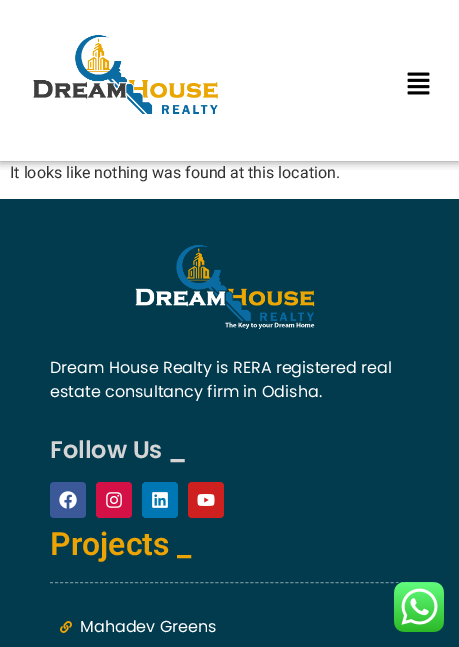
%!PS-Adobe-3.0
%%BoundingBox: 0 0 459 647
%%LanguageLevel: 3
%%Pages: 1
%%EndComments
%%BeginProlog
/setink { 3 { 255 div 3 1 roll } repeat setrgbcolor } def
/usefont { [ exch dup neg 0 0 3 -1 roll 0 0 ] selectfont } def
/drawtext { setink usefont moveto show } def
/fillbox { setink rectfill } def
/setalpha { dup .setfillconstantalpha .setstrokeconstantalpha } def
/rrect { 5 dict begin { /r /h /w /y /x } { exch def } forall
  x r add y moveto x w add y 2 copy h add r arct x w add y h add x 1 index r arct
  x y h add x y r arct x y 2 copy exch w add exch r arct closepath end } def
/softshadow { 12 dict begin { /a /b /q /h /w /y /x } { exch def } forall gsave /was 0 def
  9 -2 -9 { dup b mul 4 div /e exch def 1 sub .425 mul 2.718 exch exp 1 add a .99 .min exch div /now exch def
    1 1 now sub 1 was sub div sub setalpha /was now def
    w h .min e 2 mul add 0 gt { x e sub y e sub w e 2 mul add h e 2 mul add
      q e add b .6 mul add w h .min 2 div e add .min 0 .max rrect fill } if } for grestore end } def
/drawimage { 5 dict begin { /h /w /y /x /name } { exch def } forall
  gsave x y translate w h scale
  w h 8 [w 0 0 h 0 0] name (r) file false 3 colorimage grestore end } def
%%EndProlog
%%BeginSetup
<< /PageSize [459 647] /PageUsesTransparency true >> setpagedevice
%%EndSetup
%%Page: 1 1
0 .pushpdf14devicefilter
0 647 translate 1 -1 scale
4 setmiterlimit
0 0 459 647 255 255 255 fillbox
gsave
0 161 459 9 rectclip
0 0 0 setink
0 0 459 161 0 5 0.5 softshadow
grestore
(assets/img1.rgb) 33 34 185 80 drawimage
(assets/img2.rgb) 407 72 23 23 drawimage
(It looks like nothing was found at this location.) 10 178 /Roboto-Regular 16 51 51 51 drawtext
0 199 459 448 2 59 78 fillbox
(assets/img3.rgb) 135 245 180 84 drawimage
(Dream House Realty is RERA registered real) 50 373 /Poppins-Regular 16 255 255 255 drawtext
(estate consultancy firm in Odisha.) 50 397 /Poppins-Regular 16 255 255 255 drawtext
(Follow Us _) 50 458 /Poppins-SemiBold 24 212 212 212 drawtext
59 89 152 setink
50 482 36 36 4 rrect fill
(assets/img4.rgb) 59 491 18 18 drawimage
212 17 71 setink
96 482 36 36 4 rrect fill
(assets/img5.rgb) 106 492 16 16 drawimage
0 119 181 setink
142 482 36 36 4 rrect fill
(assets/img6.rgb) 152 492 16 16 drawimage
205 32 31 setink
188 482 36 36 4 rrect fill
(assets/img7.rgb) 197 494 18 12 drawimage
(Projects _) 50 555 /Roboto-SemiBold 32 236 163 4 drawtext
111 143 154 setink
[3 2.01] 0 setdash
50 582.5 moveto 409 582.5 lineto stroke
(assets/img8.rgb) 60 621 12 12 drawimage
(Mahadev Greens) 80 632 /Poppins-Regular 16 255 255 255 drawtext
(assets/img9.rgb) 394 582 50 50 drawimage
.poppdf14devicefilter showpage
%%EOF
